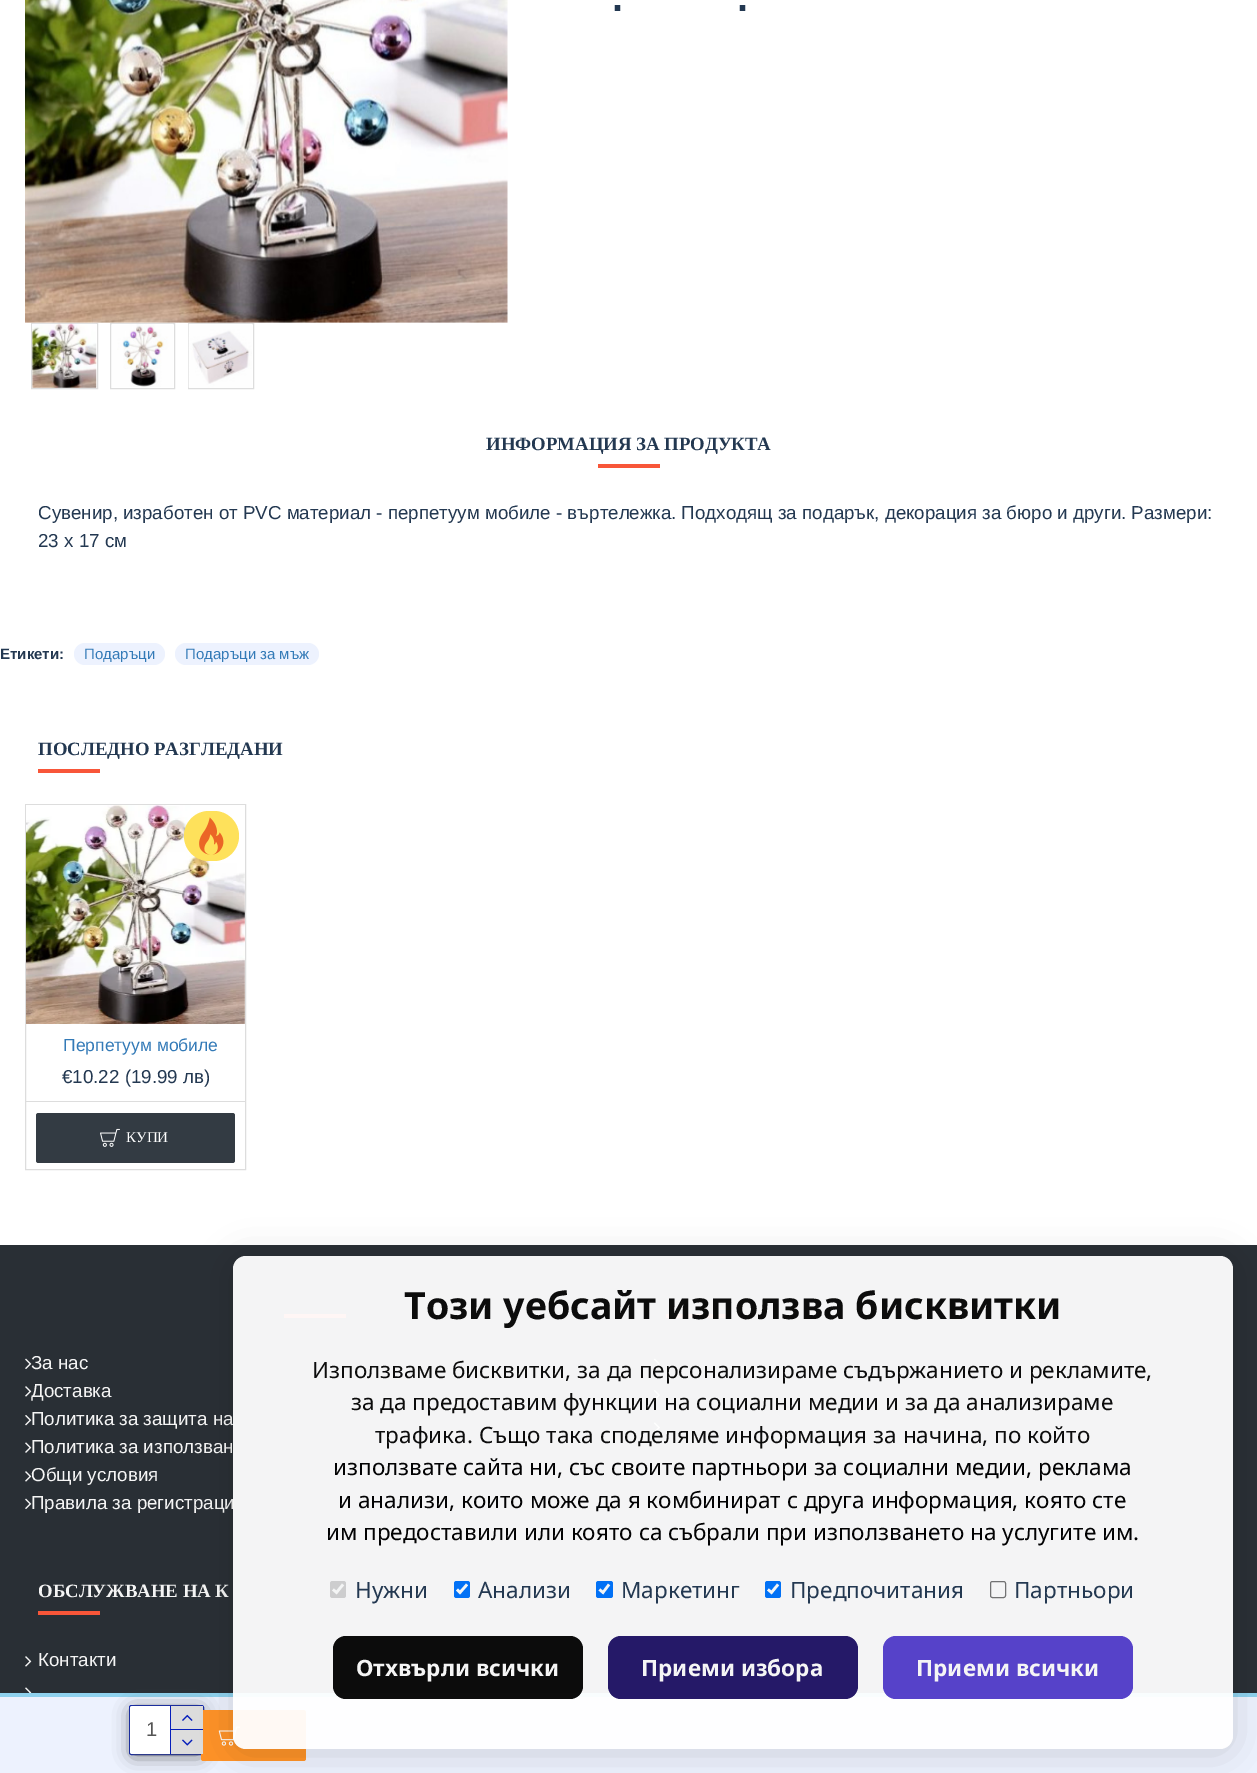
%!PS-Adobe-3.0
%%BoundingBox: 0 0 1257 1773
%%LanguageLevel: 3
%%Pages: 1
%%EndComments
%%BeginProlog
/setink { 3 { 255 div 3 1 roll } repeat setrgbcolor } def
/usefont { [ exch dup neg 0 0 3 -1 roll 0 0 ] selectfont } def
/drawtext { setink usefont moveto show } def
/fillbox { setink rectfill } def
/setalpha { dup .setfillconstantalpha .setstrokeconstantalpha } def
/rrect { 5 dict begin { /r /h /w /y /x } { exch def } forall
  x r add y moveto x w add y 2 copy h add r arct x w add y h add x 1 index r arct
  x y h add x y r arct x y 2 copy exch w add exch r arct closepath end } def
/softshadow { 12 dict begin { /a /b /q /h /w /y /x } { exch def } forall gsave /was 0 def
  9 -2 -9 { dup b mul 4 div /e exch def 1 sub .425 mul 2.718 exch exp 1 add a .99 .min exch div /now exch def
    1 1 now sub 1 was sub div sub setalpha /was now def
    w h .min e 2 mul add 0 gt { x e sub y e sub w e 2 mul add h e 2 mul add
      q e add b .6 mul add w h .min 2 div e add .min 0 .max rrect fill } if } for grestore end } def
/drawimage { 5 dict begin { /h /w /y /x /name } { exch def } forall
  gsave x y translate w h scale
  w h 8 [w 0 0 h 0 0] name (r) file false 3 colorimage grestore end } def
%%EndProlog
%%BeginSetup
<< /PageSize [1257 1773] /PageUsesTransparency true >> setpagedevice
%%EndSetup
%%Page: 1 1
0 .pushpdf14devicefilter
0 1773 translate 1 -1 scale
4 setmiterlimit
0 0 1257 1773 255 255 255 fillbox
(assets/img1.rgb) 25 0 483 323 drawimage
221 221 221 setink
31.5 323.5 66 65 rectstroke
(assets/img2.rgb) 32 323 65 65 drawimage
110.5 323.5 64 65 rectstroke
(assets/img3.rgb) 112 323 61 64 drawimage
188.5 323.5 65 65 rectstroke
(assets/img4.rgb) 188 323 64 65 drawimage
(.) 612 11 /LiberationSans-Bold 40 35 56 81 drawtext
(.) 737 11 /LiberationSans-Bold 40 35 56 81 drawtext
0 1697 1257 76 237 242 254 fillbox
0 1693 1257 4 143 210 238 fillbox
6 30 187 setink
129.5 1705.5 74 49 2 rrect stroke
0 1245 1257 448 41 47 53 fillbox
85 85 85 setink
133 1711 67 43 0 9.5 1 softshadow
255 255 255 setink
130 1706 73 48 2.5 rrect fill
(1) 146 1736 /LiberationSans-Regular 20 85 85 85 drawtext
170 1706 1 48 6 30 187 fillbox
255 147 39 setink
201 1710 105 51 2.5 rrect fill
171 1706 32 23 221 221 221 fillbox
171 1729 32 1 6 30 187 fillbox
(assets/img5.rgb) 182 1714 11 7 drawimage
171 1730 32 24 221 221 221 fillbox
(assets/img6.rgb) 182 1739 11 7 drawimage
(assets/img7.rgb) 218 1726 22 20 drawimage
(ИНФОРМАЦИЯ ЗА ПРОДУКТА) 486 450 /LiberationSerif-Bold 18.75 35 56 81 drawtext
598 464 62 4 248 86 57 fillbox
(Сувенир, изработен от PVC материал - перпетуум мобиле - въртележка. Подходящ за подарък, декорация за бюро и други. Размери:) 38 519 /LiberationSans-Regular 18.75 35 56 81 drawtext
(23 х 17 см) 38 547 /LiberationSans-Regular 18.75 35 56 81 drawtext
(Етикети:) 0 659 /LiberationSans-Bold 15 35 56 81 drawtext
237 242 254 setink
74 643 91 22 11 rrect fill
(Подаръци) 84 659 /LiberationSans-Regular 15 51 122 183 drawtext
237 242 254 setink
175 643 144 22 11 rrect fill
(Подаръци за мъж) 185 659 /LiberationSans-Regular 15 51 122 183 drawtext
(ПОСЛЕДНО РАЗГЛЕДАНИ) 38 755 /LiberationSerif-Bold 18.75 35 56 81 drawtext
38 769 62 4 248 86 57 fillbox
221 221 221 setink
25.5 804.5 220 365 rectstroke
(assets/img8.rgb) 26 805 219 219 drawimage
254 225 91 setink
184 811 55 50 25 rrect fill
(assets/img9.rgb) 199 817 25 38 drawimage
(Перпетуум мобиле) 63 1051 /LiberationSans-Regular 17.5 51 122 183 drawtext
(€10.22 \(19.99 лв\)) 62 1083 /LiberationSans-Regular 18.75 35 56 81 drawtext
26 1101 219 1 221 221 221 fillbox
51 59 67 setink
36 1113 199 50 2.5 rrect fill
(assets/img10.rgb) 100 1128 20 19 drawimage
(КУПИ) 126 1142 /LiberationSerif-Regular 15 255 255 255 drawtext
284 1314 62 4 248 86 57 fillbox
(assets/img11.rgb) 25 1358 7 11 drawimage
(За нас) 31 1369 /LiberationSans-Regular 18.75 245 245 245 drawtext
(Доставка) 31 1397 /LiberationSans-Regular 18.75 245 245 245 drawtext
(assets/img12.rgb) 25 1386 7 11 drawimage
(assets/img13.rgb) 25 1415 7 11 drawimage
(Политика за защита на) 31 1425 /LiberationSans-Regular 18.75 245 245 245 drawtext
(assets/img14.rgb) 25 1442 7 11 drawimage
(Политика за използван) 31 1453 /LiberationSans-Regular 18.75 245 245 245 drawtext
(assets/img15.rgb) 25 1471 7 11 drawimage
(Общи условия) 31 1481 /LiberationSans-Regular 18.75 245 245 245 drawtext
(assets/img11.rgb) 25 1498 7 11 drawimage
(Правила за регистраци) 31 1509 /LiberationSans-Regular 18.75 245 245 245 drawtext
666 1314 63 4 248 86 57 fillbox
(assets/img16.rgb) 653 1358 7 12 drawimage
(assets/img17.rgb) 653 1390 7 11 drawimage
(assets/img18.rgb) 653 1422 7 11 drawimage
(ОБСЛУЖВАНЕ НА К) 38 1597 /LiberationSerif-Bold 18.75 245 245 245 drawtext
38 1611 62 4 248 86 57 fillbox
(assets/img15.rgb) 25 1656 7 11 drawimage
(Контакти) 38 1666 /LiberationSans-Regular 18.75 245 245 245 drawtext
(assets/img19.rgb) 25 1687 7 6 drawimage
gsave
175 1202 moveto 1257 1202 lineto 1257 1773 lineto 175 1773 lineto closepath 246 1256 moveto 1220 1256 lineto 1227 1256 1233 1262 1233 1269 curveto 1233 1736 lineto 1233 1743 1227 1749 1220 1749 curveto 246 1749 lineto 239 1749 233 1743 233 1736 curveto 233 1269 lineto 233 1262 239 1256 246 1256 curveto closepath eoclip newpath
0 0 0 setink
233 1260 1000 493 13 19 0.15 softshadow
grestore
0.95 setalpha
255 255 255 setink
233 1256 1000 493 13 rrect fill
1 setalpha
(Този уебсайт използва бисквитки) 404 1319 /NotoSans-Bold 37.5 12 12 12 drawtext
(Използваме бисквитки, за да персонализираме съдържанието и рекламите,) 312 1378 /NotoSans-Regular 22.5 12 12 12 drawtext
(за да предоставим функции на социални медии и за да анализираме) 351 1410 /NotoSans-Regular 22.5 12 12 12 drawtext
(трафика. Също така споделяме информация за начина, по който) 375 1443 /NotoSans-Regular 22.5 12 12 12 drawtext
(използвате сайта ни, със своите партньори за социални медии, реклама) 333 1475 /NotoSans-Regular 22.5 2 2 3 drawtext
(и анализи, които може да я комбинират с друга информация, която сте) 338 1508 /NotoSans-Regular 22.5 2 2 3 drawtext
(им предоставили или която са събрали при използването на услугите им.) 326 1540 /NotoSans-Regular 22.5 2 2 3 drawtext
205 205 206 setink
330 1581 16 17 2.5 rrect fill
244 245 245 setink
2.6 setlinewidth
333 1589.5 moveto 336.5 1592.5 lineto 343 1584.5 lineto stroke
(Нужни) 355 1598 /NotoSans-Regular 22.5 35 56 81 drawtext
2 113 245 setink
454 1581 16 17 2.5 rrect fill
244 245 245 setink
457 1589.5 moveto 460 1592.5 lineto 467 1584.5 lineto stroke
(Анализи) 478 1598 /NotoSans-Regular 22.5 35 56 81 drawtext
2 113 245 setink
596 1581 17 17 2.5 rrect fill
244 245 245 setink
599.5 1589.5 moveto 603 1592.5 lineto 609 1584.5 lineto stroke
(Маркетинг) 621 1598 /NotoSans-Regular 22.5 35 56 81 drawtext
2 113 245 setink
765 1581 16 17 2.5 rrect fill
244 245 245 setink
768 1589.5 moveto 771.5 1592.5 lineto 778 1584.5 lineto stroke
(Предпочитания) 790 1598 /NotoSans-Regular 22.5 35 56 81 drawtext
114 114 115 setink
1 setlinewidth
990.5 1581.5 15 16 2 rrect stroke
(Партньори) 1014 1598 /NotoSans-Regular 22.5 35 56 81 drawtext
0.95 setalpha
0 0 0 setink
333 1636 250 63 13 rrect fill
1 setalpha
(Отхвърли всички) 356 1676 /NotoSans-Bold 22.5 245 245 245 drawtext
0.95 setalpha
26 13 96 setink
608 1636 250 63 13 rrect fill
1 setalpha
(Приеми избора) 641 1676 /NotoSans-Bold 22.5 245 245 245 drawtext
0.95 setalpha
78 56 199 setink
883 1636 250 63 13 rrect fill
1 setalpha
(Приеми всички) 916 1676 /NotoSans-Bold 22.5 245 245 245 drawtext
.poppdf14devicefilter showpage
%%EOF
